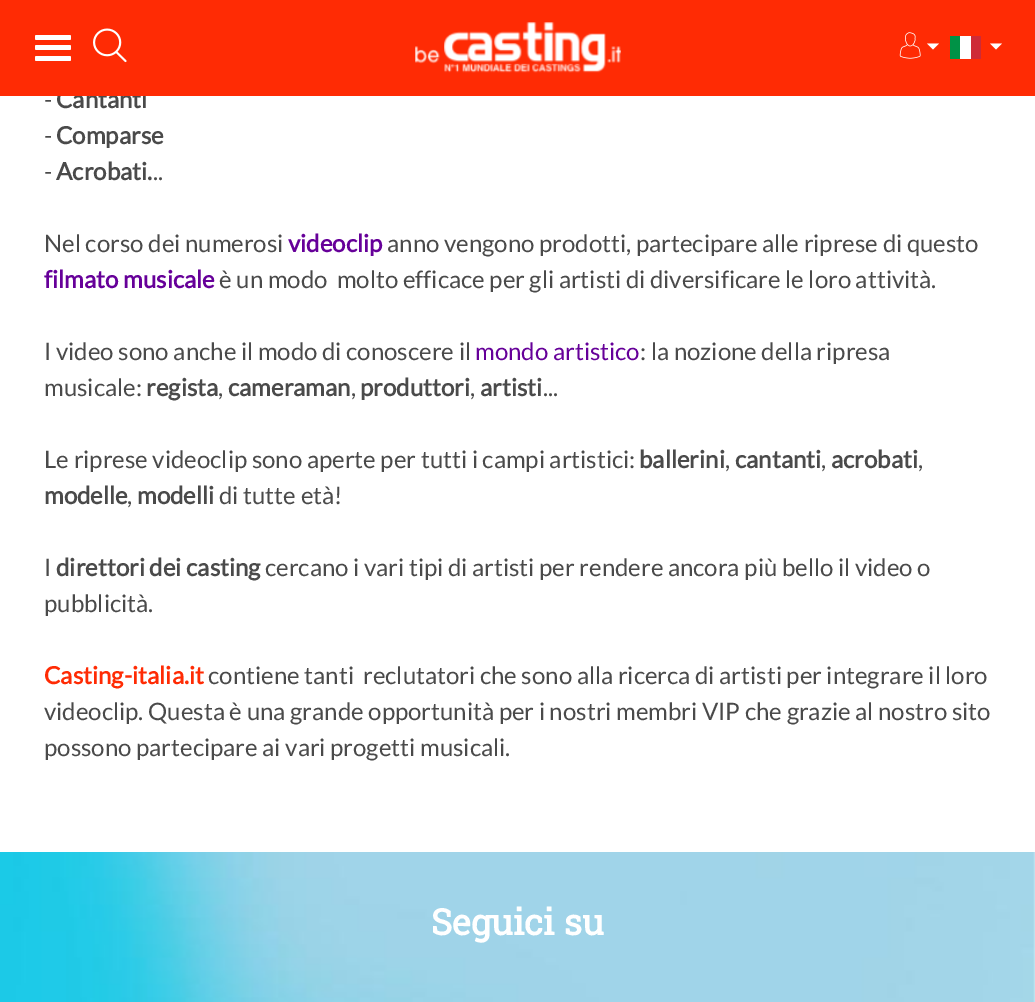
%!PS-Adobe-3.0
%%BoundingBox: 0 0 1035 1002
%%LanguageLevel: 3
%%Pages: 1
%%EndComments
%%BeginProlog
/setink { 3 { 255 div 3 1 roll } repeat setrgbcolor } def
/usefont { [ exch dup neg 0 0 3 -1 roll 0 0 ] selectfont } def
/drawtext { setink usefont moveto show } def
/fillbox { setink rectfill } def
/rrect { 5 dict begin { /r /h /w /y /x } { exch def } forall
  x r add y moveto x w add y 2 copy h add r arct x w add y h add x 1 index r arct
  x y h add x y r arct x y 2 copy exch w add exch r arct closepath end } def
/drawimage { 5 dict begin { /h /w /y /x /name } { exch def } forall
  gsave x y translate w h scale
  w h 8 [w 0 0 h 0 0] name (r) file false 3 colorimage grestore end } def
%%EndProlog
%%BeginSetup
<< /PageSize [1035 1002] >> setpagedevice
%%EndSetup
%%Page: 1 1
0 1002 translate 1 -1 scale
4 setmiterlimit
0 0 1035 1002 255 255 255 fillbox
(Cantanti) 56 108 /Lato-Bold 24 74 74 74 drawtext
0 0 1035 96 255 43 4 fillbox
255 255 255 setink
35 35 36 5 1.5 rrect fill
35 45 36 5 1.5 rrect fill
35 56 36 5 1.5 rrect fill
(assets/img1.rgb) 93 28 34 35 drawimage
(assets/img2.rgb) 415 22 206 51 drawimage
(assets/img3.rgb) 899 32 22 27 drawimage
927 43.5 moveto 939 43.5 lineto 933 49.5 lineto closepath fill
960 36 11 23 255 255 255 fillbox
950 36 10 23 0 146 70 fillbox
971 36 10 23 206 43 55 fillbox
255 255 255 setink
990 43.5 moveto 1002 43.5 lineto 996 49.5 lineto closepath fill
(-) 44 108 /Lato-Regular 24 74 74 74 drawtext
(-) 44 144 /Lato-Regular 24 74 74 74 drawtext
(Comparse) 56 144 /Lato-Bold 24 74 74 74 drawtext
(-) 44 180 /Lato-Regular 24 74 74 74 drawtext
(Acrobati.) 56 180 /Lato-Bold 24 74 74 74 drawtext
(..) 153 180 /Lato-Regular 24 74 74 74 drawtext
(Nel corso dei numerosi) 44 252 /Lato-Regular 24 74 74 74 drawtext
(videoclip) 288 252 /Lato-Bold 24 102 0 153 drawtext
(anno vengono prodotti, partecipare alle riprese di questo) 387 252 /Lato-Regular 24 74 74 74 drawtext
(filmato musicale) 44 288 /Lato-Bold 24 102 0 153 drawtext
(è un modo  molto efficace per gli artisti di diversificare le loro attività.) 219 288 /Lato-Regular 24 74 74 74 drawtext
(I video sono anche il modo di conoscere il) 44 360 /Lato-Regular 24 74 74 74 drawtext
(mondo artistico) 475 360 /Lato-Regular 24 102 0 153 drawtext
(: la nozione della ripresa) 640 360 /Lato-Regular 24 74 74 74 drawtext
(musicale:) 44 396 /Lato-Regular 24 74 74 74 drawtext
(regista) 146 396 /Lato-Bold 24 74 74 74 drawtext
(,) 218 396 /Lato-Regular 24 74 74 74 drawtext
(cameraman) 228 396 /Lato-Bold 24 74 74 74 drawtext
(,) 351 396 /Lato-Regular 24 74 74 74 drawtext
(produttori) 360 396 /Lato-Bold 24 74 74 74 drawtext
(,) 470 396 /Lato-Regular 24 74 74 74 drawtext
(artisti) 480 396 /Lato-Bold 24 74 74 74 drawtext
(...) 543 396 /Lato-Regular 24 74 74 74 drawtext
(Le riprese videoclip sono aperte per tutti i campi artistici:) 44 468 /Lato-Regular 24 74 74 74 drawtext
(ballerini) 639 468 /Lato-Bold 24 74 74 74 drawtext
(,) 725 468 /Lato-Regular 24 74 74 74 drawtext
(cantanti) 735 468 /Lato-Bold 24 74 74 74 drawtext
(,) 821 468 /Lato-Regular 24 74 74 74 drawtext
(acrobati) 831 468 /Lato-Bold 24 74 74 74 drawtext
(,) 918 468 /Lato-Regular 24 74 74 74 drawtext
(modelle) 44 504 /Lato-Bold 24 74 74 74 drawtext
(,) 127 504 /Lato-Regular 24 74 74 74 drawtext
(modelli) 137 504 /Lato-Bold 24 74 74 74 drawtext
(di tutte età!) 219 504 /Lato-Regular 24 74 74 74 drawtext
(I) 44 576 /Lato-Regular 24 74 74 74 drawtext
(direttori dei casting) 56 576 /Lato-Bold 24 74 74 74 drawtext
(cercano i vari tipi di artisti per rendere ancora più bello il video o) 265 576 /Lato-Regular 24 74 74 74 drawtext
(pubblicità.) 44 612 /Lato-Regular 24 74 74 74 drawtext
(Casting-italia.it) 44 684 /Lato-Bold 24 255 43 4 drawtext
(contiene tanti  reclutatori che sono alla ricerca di artisti per integrare il loro) 208 684 /Lato-Regular 24 74 74 74 drawtext
(videoclip. Questa è una grande opportunità per i nostri membri VIP che grazie al nostro sito) 44 720 /Lato-Regular 24 74 74 74 drawtext
(possono partecipare ai vari progetti musicali.) 44 756 /Lato-Regular 24 74 74 74 drawtext
(assets/img4.rgb) 0 852 1035 150 drawimage
(Seguici su) 431 935 /RobotoSlab-Bold 36 255 255 255 drawtext
showpage
%%EOF
